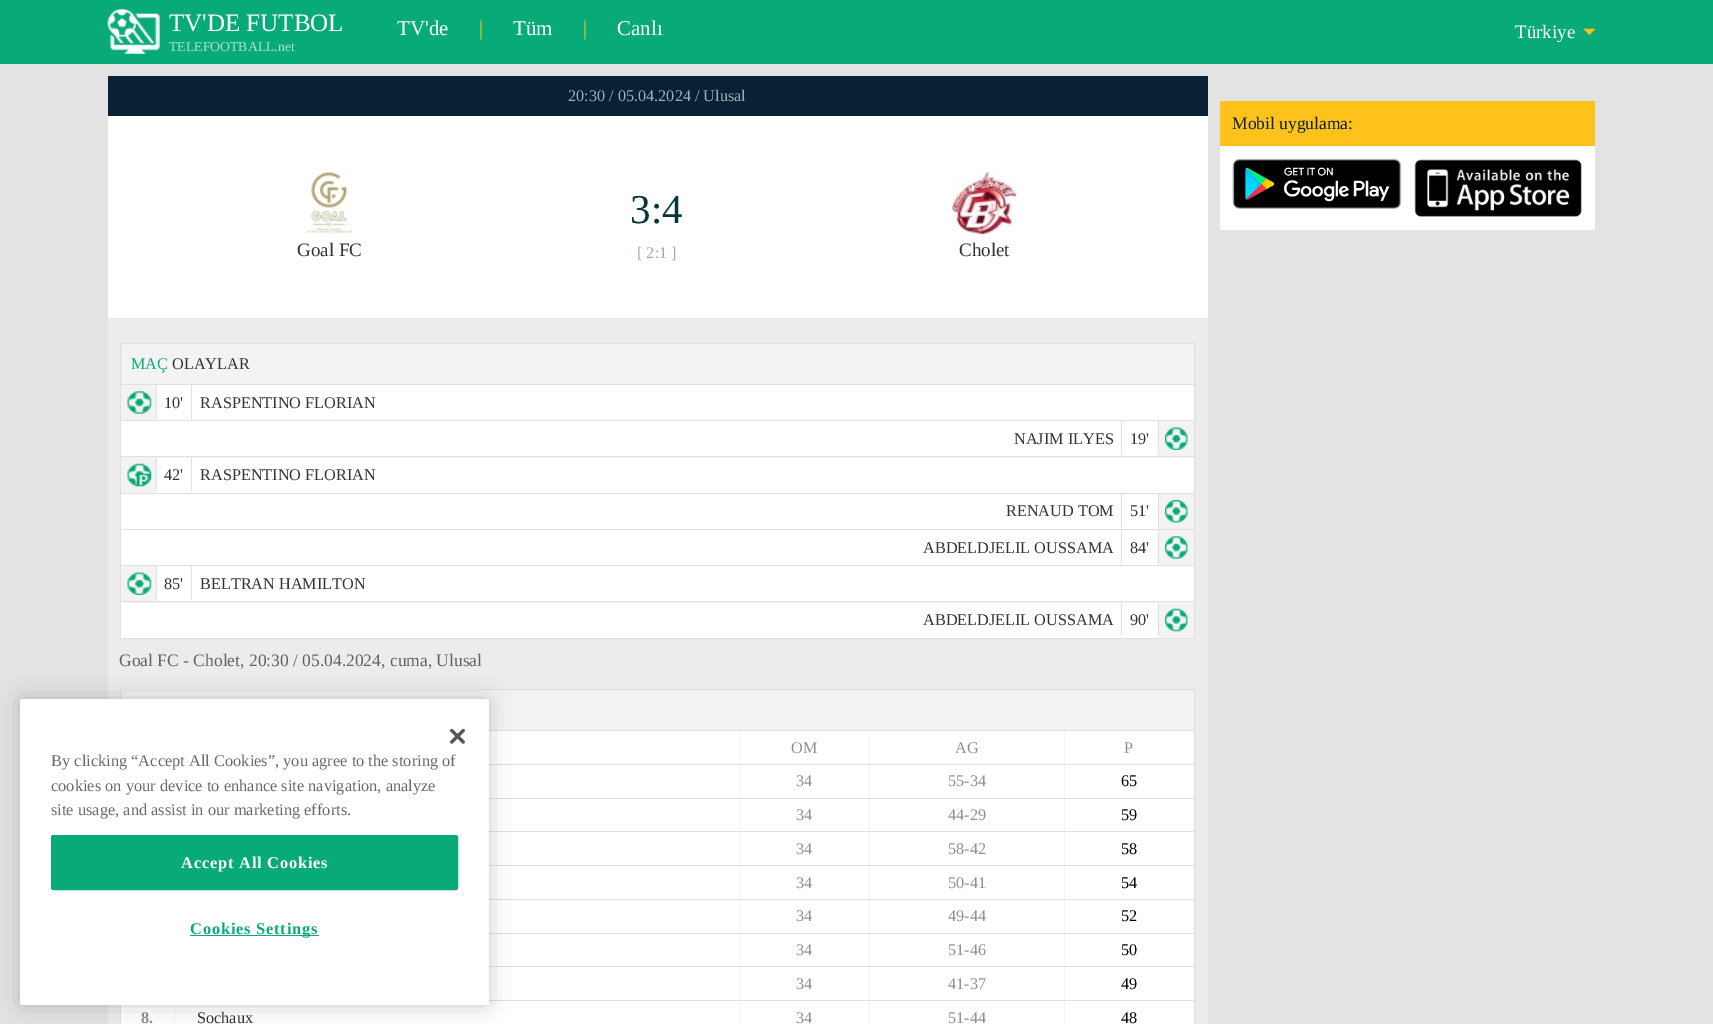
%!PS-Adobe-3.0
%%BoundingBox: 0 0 1713 1024
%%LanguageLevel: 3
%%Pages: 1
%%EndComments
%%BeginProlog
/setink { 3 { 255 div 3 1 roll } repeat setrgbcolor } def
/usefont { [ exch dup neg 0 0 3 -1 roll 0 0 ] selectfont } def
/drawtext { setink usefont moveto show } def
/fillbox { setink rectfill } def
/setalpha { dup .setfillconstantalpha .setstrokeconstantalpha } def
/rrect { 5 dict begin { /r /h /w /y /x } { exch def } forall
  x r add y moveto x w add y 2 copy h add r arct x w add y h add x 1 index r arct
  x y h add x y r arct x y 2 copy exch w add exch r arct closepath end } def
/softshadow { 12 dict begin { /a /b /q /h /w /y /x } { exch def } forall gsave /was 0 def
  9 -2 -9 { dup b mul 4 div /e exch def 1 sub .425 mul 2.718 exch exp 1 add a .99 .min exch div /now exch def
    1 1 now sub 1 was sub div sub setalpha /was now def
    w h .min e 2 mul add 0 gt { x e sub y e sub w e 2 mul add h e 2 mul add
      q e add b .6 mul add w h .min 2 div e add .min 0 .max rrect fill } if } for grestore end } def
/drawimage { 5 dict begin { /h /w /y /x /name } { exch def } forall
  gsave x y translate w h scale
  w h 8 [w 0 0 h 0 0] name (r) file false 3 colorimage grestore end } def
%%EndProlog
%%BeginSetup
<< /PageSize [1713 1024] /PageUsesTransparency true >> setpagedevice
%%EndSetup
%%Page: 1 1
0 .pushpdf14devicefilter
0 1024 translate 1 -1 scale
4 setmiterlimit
0 0 1713 1024 227 227 227 fillbox
0 0 1713 64 8 170 120 fillbox
(assets/img1.rgb) 107 8 53 46 drawimage
(TV'DE FUTBOL) 169 31 /LiberationSerif-Regular 25 255 255 255 drawtext
(TELEFOOTBALL.net) 169 51 /LiberationSerif-Regular 13.75 169 225 208 drawtext
(TV'de) 397 35 /LiberationSerif-Regular 21 255 255 255 drawtext
(|) 479 35 /LiberationSerif-Regular 21 255 194 26 drawtext
(Tüm) 513 35 /LiberationSerif-Regular 21 255 255 255 drawtext
(|) 583 35 /LiberationSerif-Regular 21 255 194 26 drawtext
(Canlı) 617 35 /LiberationSerif-Regular 21 255 255 255 drawtext
(assets/img2.rgb) 1583 28 12 7 drawimage
(Türkiye) 1515 38 /LiberationSerif-Regular 19 255 255 255 drawtext
108 116 1100 202 255 255 255 fillbox
108 76 1100 40 9 33 52 fillbox
(20:30 / 05.04.2024 / Ulusal) 568 101 /LiberationSerif-Regular 16.25 156 174 178 drawtext
(assets/img3.rgb) 305 171 48 63 drawimage
(Goal FC) 297 256 /LiberationSerif-Regular 19 51 51 51 drawtext
(3:4) 630 223 /LiberationSerif-Regular 41 9 53 63 drawtext
([ 2:1 ]) 637 258 /LiberationSerif-Regular 16.25 156 174 178 drawtext
(assets/img4.rgb) 952 171 65 63 drawimage
(Cholet) 959 256 /LiberationSerif-Regular 19 51 51 51 drawtext
108 318 1100 706 236 236 236 fillbox
243 243 243 setink
120.5 343.5 moveto 1194.5 343.5 lineto 1194.5 384.5 lineto 120.5 384.5 lineto closepath gsave fill grestore
224 224 224 setink
stroke
(MAÇ) 131 369 /LiberationSerif-Regular 16.25 8 170 120 drawtext
(OLAYLAR) 172 369 /LiberationSerif-Regular 16.25 51 51 51 drawtext
121 385 35 35 243 243 243 fillbox
1194 385 1 254 224 224 224 fillbox
120 420 1075 1 224 224 224 fillbox
120 385 1 36 224 224 224 fillbox
(assets/img5.rgb) 127 391 25 23 drawimage
156 385 1038 35 255 255 255 fillbox
(10') 164 408 /LiberationSerif-Regular 16.25 51 51 51 drawtext
156 385 1 34 224 224 224 fillbox
(RASPENTINO FLORIAN) 200 408 /LiberationSerif-Regular 16.25 51 51 51 drawtext
191 385 1 34 224 224 224 fillbox
121 421 1073 37 243 243 243 fillbox
120 456 1075 1 224 224 224 fillbox
120 421 1 37 224 224 224 fillbox
(assets/img6.rgb) 1165 427 23 23 drawimage
121 421 1038 35 255 255 255 fillbox
(NAJIM ILYES) 1014 444 /LiberationSerif-Regular 16.25 51 51 51 drawtext
1121 421 1 34 224 224 224 fillbox
(19') 1130 444 /LiberationSerif-Regular 16.25 51 51 51 drawtext
1158 421 1 34 224 224 224 fillbox
121 458 35 35 243 243 243 fillbox
120 493 1075 1 224 224 224 fillbox
120 458 1 36 224 224 224 fillbox
(assets/img7.rgb) 127 463 25 24 drawimage
156 458 1038 35 255 255 255 fillbox
(42') 164 480 /LiberationSerif-Regular 16.25 51 51 51 drawtext
156 458 1 33 224 224 224 fillbox
(RASPENTINO FLORIAN) 200 480 /LiberationSerif-Regular 16.25 51 51 51 drawtext
191 458 1 33 224 224 224 fillbox
1159 494 35 35 243 243 243 fillbox
120 529 1075 1 224 224 224 fillbox
120 494 1 36 224 224 224 fillbox
(assets/img8.rgb) 1165 500 23 23 drawimage
121 494 1038 35 255 255 255 fillbox
(RENAUD TOM) 1006 516 /LiberationSerif-Regular 16.25 51 51 51 drawtext
1121 494 1 34 224 224 224 fillbox
(51') 1130 516 /LiberationSerif-Regular 16.25 51 51 51 drawtext
1158 494 1 34 224 224 224 fillbox
1159 530 35 35 243 243 243 fillbox
120 565 1075 1 224 224 224 fillbox
120 530 1 36 224 224 224 fillbox
(assets/img9.rgb) 1165 536 23 23 drawimage
121 530 1038 35 255 255 255 fillbox
(ABDELDJELIL OUSSAMA) 923 553 /LiberationSerif-Regular 16.25 51 51 51 drawtext
1121 530 1 34 224 224 224 fillbox
(84') 1130 553 /LiberationSerif-Regular 16.25 51 51 51 drawtext
1158 530 1 34 224 224 224 fillbox
121 566 1073 37 243 243 243 fillbox
120 601 1075 1 224 224 224 fillbox
120 566 1 37 224 224 224 fillbox
(assets/img10.rgb) 127 572 25 23 drawimage
156 566 1038 35 255 255 255 fillbox
(85') 164 589 /LiberationSerif-Regular 16.25 51 51 51 drawtext
156 566 1 34 224 224 224 fillbox
(BELTRAN HAMILTON) 200 589 /LiberationSerif-Regular 16.25 51 51 51 drawtext
191 566 1 34 224 224 224 fillbox
1159 603 35 35 243 243 243 fillbox
120 638 1075 1 224 224 224 fillbox
120 603 1 36 224 224 224 fillbox
(assets/img11.rgb) 1165 608 23 24 drawimage
121 603 1038 35 255 255 255 fillbox
(ABDELDJELIL OUSSAMA) 923 625 /LiberationSerif-Regular 16.25 51 51 51 drawtext
1121 603 1 33 224 224 224 fillbox
(90') 1130 625 /LiberationSerif-Regular 16.25 51 51 51 drawtext
1158 603 1 33 224 224 224 fillbox
(Goal FC - Cholet, 20:30 / 05.04.2024, cuma, Ulusal) 119 666 /LiberationSerif-Regular 17.5 99 99 99 drawtext
243 243 243 setink
120.5 689.5 moveto 1194.5 689.5 lineto 1194.5 730.5 lineto 120.5 730.5 lineto closepath gsave fill grestore
224 224 224 setink
stroke
489 731 705 33 255 255 255 fillbox
1194 731 1 293 224 224 224 fillbox
489 764 706 1 224 224 224 fillbox
739 731 1 33 243 243 243 fillbox
(OM) 791 753 /LiberationSerif-Regular 16.25 144 144 144 drawtext
869 731 1 33 243 243 243 fillbox
(AG) 955 753 /LiberationSerif-Regular 16.25 144 144 144 drawtext
1064 731 1 33 243 243 243 fillbox
(P) 1124 753 /LiberationSerif-Regular 16.25 144 144 144 drawtext
489 765 705 33 255 255 255 fillbox
489 798 706 1 224 224 224 fillbox
739 765 1 33 243 243 243 fillbox
(34) 796 786 /LiberationSerif-Regular 16.25 144 144 144 drawtext
869 765 1 33 243 243 243 fillbox
(55-34) 948 786 /LiberationSerif-Regular 16.25 144 144 144 drawtext
1064 765 1 33 243 243 243 fillbox
(65) 1121 786 /LiberationSerif-Regular 16.25 0 0 0 drawtext
489 799 705 66 255 255 255 fillbox
489 831 706 1 224 224 224 fillbox
739 799 1 32 243 243 243 fillbox
(34) 796 820 /LiberationSerif-Regular 16.25 144 144 144 drawtext
869 799 1 32 243 243 243 fillbox
(44-29) 948 820 /LiberationSerif-Regular 16.25 144 144 144 drawtext
1064 799 1 32 243 243 243 fillbox
(59) 1121 820 /LiberationSerif-Regular 16.25 0 0 0 drawtext
489 865 706 1 224 224 224 fillbox
739 833 1 32 243 243 243 fillbox
(34) 796 854 /LiberationSerif-Regular 16.25 144 144 144 drawtext
869 833 1 32 243 243 243 fillbox
(58-42) 948 854 /LiberationSerif-Regular 16.25 144 144 144 drawtext
1064 833 1 32 243 243 243 fillbox
(58) 1121 854 /LiberationSerif-Regular 16.25 0 0 0 drawtext
489 866 705 33 255 255 255 fillbox
489 899 706 1 224 224 224 fillbox
739 866 1 33 243 243 243 fillbox
(34) 796 888 /LiberationSerif-Regular 16.25 144 144 144 drawtext
869 866 1 33 243 243 243 fillbox
(50-41) 948 888 /LiberationSerif-Regular 16.25 144 144 144 drawtext
1064 866 1 33 243 243 243 fillbox
(54) 1121 888 /LiberationSerif-Regular 16.25 0 0 0 drawtext
489 900 705 33 255 255 255 fillbox
489 933 706 1 224 224 224 fillbox
739 900 1 33 243 243 243 fillbox
(34) 796 921 /LiberationSerif-Regular 16.25 144 144 144 drawtext
869 900 1 33 243 243 243 fillbox
(49-44) 948 921 /LiberationSerif-Regular 16.25 144 144 144 drawtext
1064 900 1 33 243 243 243 fillbox
(52) 1121 921 /LiberationSerif-Regular 16.25 0 0 0 drawtext
489 934 705 66 255 255 255 fillbox
489 966 706 1 224 224 224 fillbox
739 934 1 32 243 243 243 fillbox
(34) 796 955 /LiberationSerif-Regular 16.25 144 144 144 drawtext
869 934 1 32 243 243 243 fillbox
(51-46) 948 955 /LiberationSerif-Regular 16.25 144 144 144 drawtext
1064 934 1 32 243 243 243 fillbox
(50) 1121 955 /LiberationSerif-Regular 16.25 0 0 0 drawtext
489 1000 706 1 224 224 224 fillbox
739 968 1 32 243 243 243 fillbox
(34) 796 989 /LiberationSerif-Regular 16.25 144 144 144 drawtext
869 968 1 32 243 243 243 fillbox
(41-37) 948 989 /LiberationSerif-Regular 16.25 144 144 144 drawtext
1064 968 1 32 243 243 243 fillbox
(49) 1121 989 /LiberationSerif-Regular 16.25 0 0 0 drawtext
121 1001 1073 23 255 255 255 fillbox
120 1001 1 23 224 224 224 fillbox
174 1001 1 23 243 243 243 fillbox
(8.) 141 1023 /LiberationSerif-Bold 16.25 144 144 144 drawtext
(Sochaux) 197 1023 /LiberationSerif-Regular 16.25 51 51 51 drawtext
739 1001 1 23 243 243 243 fillbox
(34) 796 1023 /LiberationSerif-Regular 16.25 144 144 144 drawtext
869 1001 1 23 243 243 243 fillbox
(51-44) 948 1023 /LiberationSerif-Regular 16.25 144 144 144 drawtext
1064 1001 1 23 243 243 243 fillbox
(48) 1121 1023 /LiberationSerif-Regular 16.25 0 0 0 drawtext
1220 101 375 45 255 194 26 fillbox
(Mobil uygulama:) 1232 129 /LiberationSerif-Regular 17.5 9 33 52 drawtext
1220 146 375 84 255 255 255 fillbox
(assets/img12.rgb) 1232 158 170 51 drawimage
(assets/img13.rgb) 1414 159 168 58 drawimage
0 0 0 setink
20 699 469 306 3 11 0.2 softshadow
255 255 255 setink
20 699 469 306 3 rrect fill
(assets/img14.rgb) 450 729 15 15 drawimage
(By clicking “Accept All Cookies”, you agree to the storing of) 51 766 /LiberationSerif-Regular 16.4 105 105 105 drawtext
(cookies on your device to enhance site navigation, analyze) 51 791 /LiberationSerif-Regular 16.4 105 105 105 drawtext
(site usage, and assist in our marketing efforts.) 51 815 /LiberationSerif-Regular 16.4 105 105 105 drawtext
8 170 120 setink
51.5 835.5 406 54 2 rrect gsave fill grestore
stroke
/LiberationSerif-Bold 16.4 usefont
255 255 255 setink
181 868 moveto 0.8 0 (Accept All Cookies) ashow
190 935 129 1 8 170 120 fillbox
190 934 moveto 0.8 0 (Cookies Settings) ashow
.poppdf14devicefilter showpage
%%EOF
